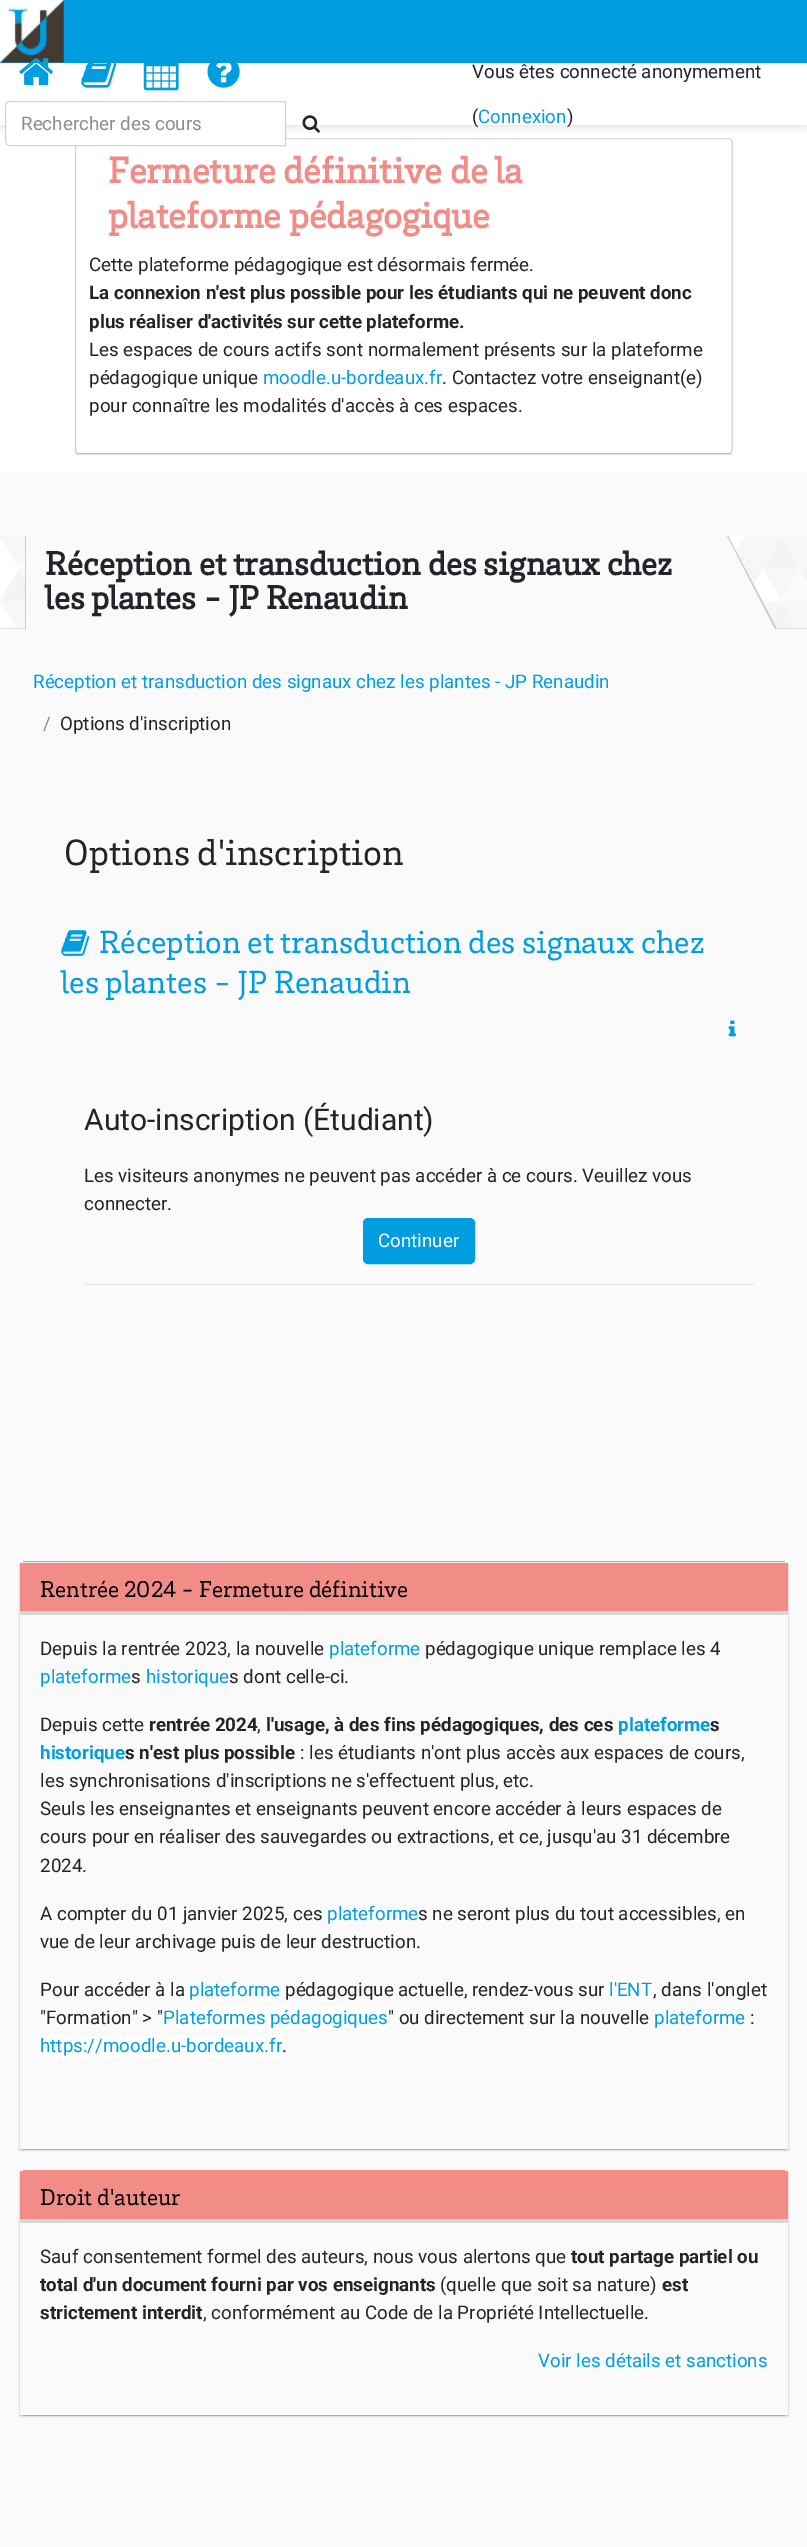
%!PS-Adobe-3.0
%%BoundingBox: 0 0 807 2547
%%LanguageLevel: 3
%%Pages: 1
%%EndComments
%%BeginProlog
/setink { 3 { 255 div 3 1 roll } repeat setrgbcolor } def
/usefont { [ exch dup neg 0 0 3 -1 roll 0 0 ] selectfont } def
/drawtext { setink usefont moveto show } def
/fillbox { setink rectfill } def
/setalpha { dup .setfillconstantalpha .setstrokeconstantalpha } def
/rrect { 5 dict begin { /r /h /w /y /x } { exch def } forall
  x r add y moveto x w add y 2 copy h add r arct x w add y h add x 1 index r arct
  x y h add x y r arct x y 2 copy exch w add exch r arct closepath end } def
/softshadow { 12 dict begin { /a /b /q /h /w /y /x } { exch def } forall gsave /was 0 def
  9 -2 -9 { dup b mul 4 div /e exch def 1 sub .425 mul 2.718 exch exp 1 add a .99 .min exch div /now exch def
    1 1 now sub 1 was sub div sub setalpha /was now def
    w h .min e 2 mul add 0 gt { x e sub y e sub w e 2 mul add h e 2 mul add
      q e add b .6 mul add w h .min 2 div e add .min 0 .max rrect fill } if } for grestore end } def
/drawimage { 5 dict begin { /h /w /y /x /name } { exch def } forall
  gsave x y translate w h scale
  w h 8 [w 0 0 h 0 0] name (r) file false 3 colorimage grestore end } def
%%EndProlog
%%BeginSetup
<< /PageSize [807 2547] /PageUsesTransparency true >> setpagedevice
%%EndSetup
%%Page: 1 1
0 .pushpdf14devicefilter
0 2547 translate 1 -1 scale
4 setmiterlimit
0 0 807 2547 250 250 250 fillbox
0 125 807 348 255 255 255 fillbox
0 0 807 63 0 157 224 fillbox
(assets/img1.rgb) 0 0 64 63 drawimage
0 0 0 setink
0 65 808 63 0 2.5 0.08 softshadow
0 63 807 62 255 255 255 fillbox
(assets/img2.rgb) 19 58 34 27 drawimage
(assets/img3.rgb) 81 63 36 25 drawimage
(assets/img4.rgb) 143 63 36 28 drawimage
(assets/img5.rgb) 207 63 33 25 drawimage
223 223 223 setink
75.5 138.5 657 315 4.5 rrect stroke
gsave
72 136 moveto 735 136 lineto 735 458 lineto 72 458 lineto closepath 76 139 moveto 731 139 lineto 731 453 lineto 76 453 lineto closepath eoclip newpath
180 176 172 setink
76 140 655 314 0 1 1 softshadow
grestore
255 255 255 setink
10 103 moveto 285 103 lineto 285 145 lineto 10 145 lineto 8 145 6 143 6 141 curveto 6 107 lineto 6 105 8 103 10 103 curveto closepath fill
206 212 218 setink
10 101.5 moveto 285.5 101.5 lineto 285.5 145.5 lineto 10 145.5 lineto 7.5 145.5 5.5 143.5 5.5 141 curveto 5.5 106 lineto 5.5 103.5 7.5 101.5 10 101.5 curveto closepath stroke
(Rechercher des cours) 21 130 /Roboto-Regular 18.75 134 142 150 drawtext
(assets/img6.rgb) 302 115 18 18 drawimage
(Vous êtes connecté anonymement) 472 78 /Roboto-Regular 18.75 33 37 41 drawtext
(\() 472 123 /Roboto-Regular 18.75 33 37 41 drawtext
(Connexion) 478 123 /Roboto-Regular 18.75 0 157 224 drawtext
(\)) 567 123 /Roboto-Regular 18.75 33 37 41 drawtext
(Fermeture définitive de la) 108 183 /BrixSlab-Bold 37.5 241 140 135 drawtext
(plateforme pédagogique) 108 228 /BrixSlab-Bold 37.5 241 140 135 drawtext
(Cette plateforme pédagogique est désormais fermée.) 89 271 /Roboto-Regular 18.75 33 37 41 drawtext
(La connexion n'est plus possible pour les étudiants qui ne peuvent donc) 89 299 /Roboto-Bold 18.75 33 37 41 drawtext
(plus réaliser d'activités sur cette plateforme.) 89 328 /Roboto-Bold 18.75 33 37 41 drawtext
(Les espaces de cours actifs sont normalement présents sur la plateforme) 89 356 /Roboto-Regular 18.75 33 37 41 drawtext
(pédagogique unique) 89 384 /Roboto-Regular 18.75 33 37 41 drawtext
(moodle.u-bordeaux.fr) 263 384 /Roboto-Regular 18.75 0 157 224 drawtext
(. Contactez votre enseignant\(e\)) 442 384 /Roboto-Regular 18.75 33 37 41 drawtext
(pour connaître les modalités d'accès à ces espaces.) 89 412 /Roboto-Regular 18.75 33 37 41 drawtext
255 255 255 setink
0 536 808 252 5 rrect fill
(assets/img7.rgb) 0 536 807 92 drawimage
0 628 807 1 222 226 230 fillbox
26 536 19 93 250 250 250 fillbox
25 536 1 93 204 204 204 fillbox
250 250 250 setink
668 536 moveto 728 536 lineto 777 629 lineto 717 629 lineto closepath fill
45 536 672 93 250 250 250 fillbox
(Réception et transduction des signaux chez) 45 575 /BrixSlab-Bold 34 33 37 41 drawtext
(les plantes - JP Renaudin) 45 609 /BrixSlab-Bold 34 33 37 41 drawtext
204 204 204 setink
727 536 moveto 728 536 lineto 777 629 lineto 775 629 lineto closepath fill
0 629 807 159 250 250 250 fillbox
(Réception et transduction des signaux chez les plantes - JP Renaudin) 33 688 /Roboto-Regular 18.75 0 157 224 drawtext
(/) 43 730 /Roboto-Regular 18.75 134 142 150 drawtext
(Options d'inscription) 60 730 /Roboto-Regular 18.75 33 37 41 drawtext
(Options d'inscription) 64 865 /BrixSlab-Regular 37.5 33 37 41 drawtext
(assets/img8.rgb) 61 930 29 26 drawimage
(Réception et transduction des signaux chez) 99 953 /BrixSlab-Regular 32.8 0 157 224 drawtext
(les plantes - JP Renaudin) 61 993 /BrixSlab-Regular 32.8 0 157 224 drawtext
(assets/img9.rgb) 728 1020 8 17 drawimage
85 1284 669 1 222 226 230 fillbox
(Auto-inscription \(Étudiant\)) 84 1130 /Roboto-Regular 30 33 37 41 drawtext
(Les visiteurs anonymes ne peuvent pas accéder à ce cours. Veuillez vous) 84 1182 /Roboto-Regular 18.75 33 37 41 drawtext
(connecter.) 84 1210 /Roboto-Regular 18.75 33 37 41 drawtext
0 157 224 setink
363.5 1218.5 111 45 4.5 rrect gsave fill grestore
stroke
(Continuer) 378 1247 /Roboto-Regular 18.75 255 255 255 drawtext
23 1561 762 1 241 140 135 fillbox
23 2149 762 1 241 140 135 fillbox
gsave
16 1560 moveto 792 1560 lineto 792 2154 lineto 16 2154 lineto closepath 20 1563 moveto 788 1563 lineto 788 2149 lineto 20 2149 lineto closepath eoclip newpath
180 176 172 setink
20 1564 768 586 0 1 1 softshadow
grestore
20 1563 768 48 241 140 135 fillbox
20 1611 768 4 217 215 213 fillbox
(Rentrée 2024 - Fermeture définitive) 40 1597 /BrixSlab-Regular 23.5 0 0 0 drawtext
(Depuis la rentrée 2023, la nouvelle) 40 1655 /Roboto-Regular 18.75 33 37 41 drawtext
(plateforme) 329 1655 /Roboto-Regular 18.75 0 157 224 drawtext
(pédagogique unique remplace les 4) 425 1655 /Roboto-Regular 18.75 33 37 41 drawtext
(plateforme) 40 1683 /Roboto-Regular 18.75 0 157 224 drawtext
(s) 131 1683 /Roboto-Regular 18.75 33 37 41 drawtext
(historique) 146 1683 /Roboto-Regular 18.75 0 157 224 drawtext
(s dont celle-ci.) 229 1683 /Roboto-Regular 18.75 33 37 41 drawtext
(Depuis cette) 40 1731 /Roboto-Regular 18.75 33 37 41 drawtext
(rentrée 2024) 149 1731 /Roboto-Bold 18.75 33 37 41 drawtext
(,) 257 1731 /Roboto-Regular 18.75 33 37 41 drawtext
(l'usage, à des fins pédagogiques, des ces) 266 1731 /Roboto-Bold 18.75 33 37 41 drawtext
(plateforme) 618 1731 /Roboto-Bold 18.75 0 157 224 drawtext
(s) 710 1731 /Roboto-Bold 18.75 33 37 41 drawtext
(historique) 40 1759 /Roboto-Bold 18.75 0 157 224 drawtext
(s n'est plus possible) 125 1759 /Roboto-Bold 18.75 33 37 41 drawtext
(: les étudiants n'ont plus accès aux espaces de cours,) 300 1759 /Roboto-Regular 18.75 33 37 41 drawtext
(les synchronisations d'inscriptions ne s'effectuent plus, etc.) 40 1787 /Roboto-Regular 18.75 33 37 41 drawtext
(Seuls les enseignantes et enseignants peuvent encore accéder à leurs espaces de) 40 1815 /Roboto-Regular 18.75 33 37 41 drawtext
(cours pour en réaliser des sauvegardes ou extractions, et ce, jusqu'au 31 décembre) 40 1843 /Roboto-Regular 18.75 33 37 41 drawtext
(2024.) 40 1872 /Roboto-Regular 18.75 33 37 41 drawtext
(A compter du 01 janvier 2025, ces) 40 1920 /Roboto-Regular 18.75 33 37 41 drawtext
(plateforme) 327 1920 /Roboto-Regular 18.75 0 157 224 drawtext
(s ne seront plus du tout accessibles, en) 418 1920 /Roboto-Regular 18.75 33 37 41 drawtext
(vue de leur archivage puis de leur destruction.) 40 1948 /Roboto-Regular 18.75 33 37 41 drawtext
(Pour accéder à la) 40 1996 /Roboto-Regular 18.75 33 37 41 drawtext
(plateforme) 189 1996 /Roboto-Regular 18.75 0 157 224 drawtext
(pédagogique actuelle, rendez-vous sur) 285 1996 /Roboto-Regular 18.75 33 37 41 drawtext
610 1979 43 22 255 255 255 fillbox
(l'ENT) 609 1996 /Roboto-Regular 18.75 0 157 224 drawtext
(, dans l'onglet) 653 1996 /Roboto-Regular 18.75 33 37 41 drawtext
("Formation" > ") 40 2024 /Roboto-Regular 18.75 33 37 41 drawtext
163 2006 225 23 255 255 255 fillbox
(Plateformes pédagogiques) 163 2024 /Roboto-Regular 18.75 0 157 224 drawtext
(" ou directement sur la nouvelle) 388 2024 /Roboto-Regular 18.75 33 37 41 drawtext
(plateforme) 654 2024 /Roboto-Regular 18.75 0 157 224 drawtext
(:) 750 2024 /Roboto-Regular 18.75 33 37 41 drawtext
40 2035 243 23 255 255 255 fillbox
(https://moodle.u-bordeaux.fr) 40 2052 /Roboto-Regular 18.75 0 157 224 drawtext
(.) 282 2052 /Roboto-Regular 18.75 33 37 41 drawtext
23 2170 762 1 241 140 135 fillbox
23 2415 762 1 241 140 135 fillbox
gsave
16 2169 moveto 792 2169 lineto 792 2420 lineto 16 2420 lineto closepath 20 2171 moveto 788 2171 lineto 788 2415 lineto 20 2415 lineto closepath eoclip newpath
180 176 172 setink
20 2173 768 243 0 1 1 softshadow
grestore
20 2171 768 48 241 140 135 fillbox
20 2219 768 4 217 215 213 fillbox
(Droit d'auteur) 40 2205 /BrixSlab-Regular 23.5 0 0 0 drawtext
(Sauf consentement formel des auteurs, nous vous alertons que) 40 2263 /Roboto-Regular 18.75 33 37 41 drawtext
(tout partage partiel ou) 571 2263 /Roboto-Bold 18.75 33 37 41 drawtext
(total d'un document fourni par vos enseignants) 40 2291 /Roboto-Bold 18.75 33 37 41 drawtext
(\(quelle que soit sa nature\)) 440 2291 /Roboto-Regular 18.75 33 37 41 drawtext
(est) 662 2291 /Roboto-Bold 18.75 33 37 41 drawtext
(strictement interdit) 40 2319 /Roboto-Bold 18.75 33 37 41 drawtext
(, conformément au Code de la Propriété Intellectuelle.) 203 2319 /Roboto-Regular 18.75 33 37 41 drawtext
(Voir les détails et sanctions) 538 2367 /Roboto-Regular 18.75 0 157 224 drawtext
.poppdf14devicefilter showpage
%%EOF
